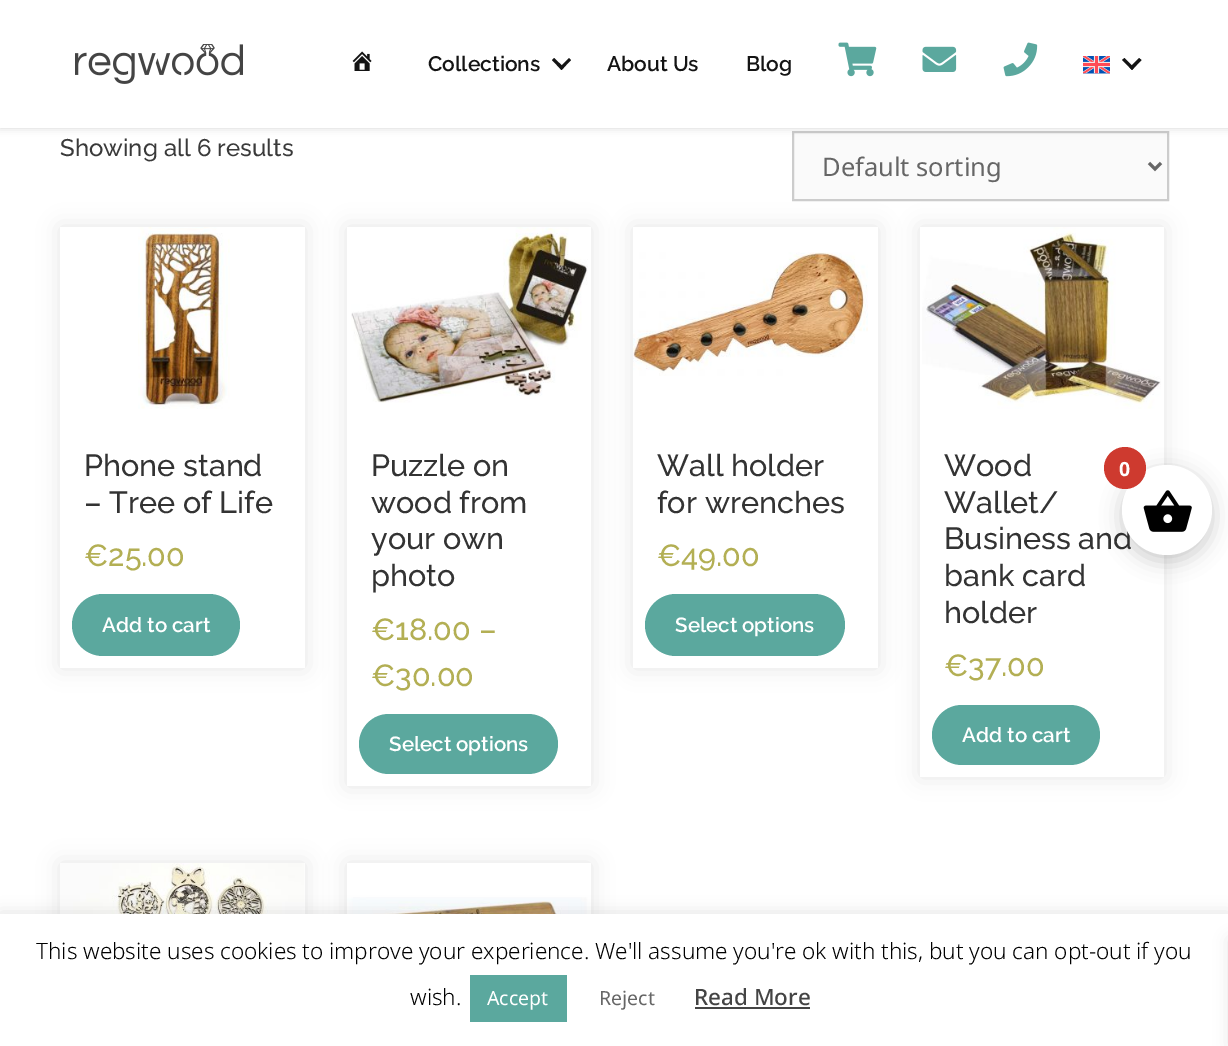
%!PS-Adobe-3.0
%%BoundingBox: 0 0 1228 1046
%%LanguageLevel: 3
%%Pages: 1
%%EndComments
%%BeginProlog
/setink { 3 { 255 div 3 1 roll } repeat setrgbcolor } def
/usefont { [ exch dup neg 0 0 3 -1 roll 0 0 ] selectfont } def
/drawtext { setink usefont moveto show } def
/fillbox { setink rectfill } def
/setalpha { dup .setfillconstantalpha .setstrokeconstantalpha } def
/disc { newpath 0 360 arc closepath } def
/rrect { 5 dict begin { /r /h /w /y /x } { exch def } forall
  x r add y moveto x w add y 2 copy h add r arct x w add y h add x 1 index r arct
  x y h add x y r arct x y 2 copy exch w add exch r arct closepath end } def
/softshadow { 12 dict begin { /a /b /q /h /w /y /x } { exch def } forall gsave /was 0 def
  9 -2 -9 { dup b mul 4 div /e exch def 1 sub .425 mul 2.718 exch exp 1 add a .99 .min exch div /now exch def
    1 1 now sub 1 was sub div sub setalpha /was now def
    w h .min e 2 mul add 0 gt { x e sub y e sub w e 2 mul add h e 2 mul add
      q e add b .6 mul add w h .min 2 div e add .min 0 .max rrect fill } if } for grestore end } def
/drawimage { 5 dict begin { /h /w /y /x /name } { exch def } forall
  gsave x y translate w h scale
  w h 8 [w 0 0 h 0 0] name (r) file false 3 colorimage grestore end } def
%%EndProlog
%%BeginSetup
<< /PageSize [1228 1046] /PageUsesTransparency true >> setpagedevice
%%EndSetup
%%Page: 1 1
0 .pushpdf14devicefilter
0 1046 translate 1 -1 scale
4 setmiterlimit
0 0 1228 1046 255 255 255 fillbox
250 250 250 setink
793 132 moveto 1168 132 lineto 1168 200 lineto 793 200 lineto closepath gsave fill grestore
204 204 204 setink
2 setlinewidth
stroke
2 0 0 setink
0 0 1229 128 0 4 0.16 softshadow
0 0 1228 128 255 255 255 fillbox
(assets/img1.rgb) 75 44 168 40 drawimage
(assets/img2.rgb) 352 51 20 20 drawimage
(Collections) 428 71 /Raleway-SemiBold 21 20 20 20 drawtext
569 58 moveto 571 60 lineto 561.5 70 lineto 559.5 67.5 lineto closepath fill
554 58 moveto 564 67.5 lineto 561.5 70 lineto 552 60 lineto closepath fill
(About Us) 607 71 /Raleway-SemiBold 21 20 20 20 drawtext
(Blog) 746 71 /Raleway-SemiBold 21 20 20 20 drawtext
(assets/img3.rgb) 838 42 39 35 drawimage
(assets/img4.rgb) 922 46 35 26 drawimage
(assets/img5.rgb) 1003 42 35 35 drawimage
(assets/img6.rgb) 1083 56 27 18 drawimage
1139 58 moveto 1141.5 60 lineto 1132 70 lineto 1129.5 67.5 lineto closepath fill
1124.5 58 moveto 1134 67.5 lineto 1132 70 lineto 1122 60 lineto closepath fill
(Showing all 6 results) 60 156 /Raleway-Medium 24 58 58 58 drawtext
102 102 102 setink
3 setlinewidth
1149 163 moveto 1155 169 lineto 1161 163 lineto stroke
(Default sorting) 822 176 /NotoSans-Regular 25.5 102 102 102 drawtext
0 0 0 setink
60 227 245 441 0 11 0.1 softshadow
60 227 245 441 255 255 255 fillbox
(assets/img7.rgb) 138 227 92 182 drawimage
(Phone stand) 84 476 /Raleway-Medium 30.5 51 51 51 drawtext
(– Tree of Life) 84 513 /Raleway-Medium 30.5 51 51 51 drawtext
(€25.00) 84 566 /Raleway-Medium 30.5 179 175 84 drawtext
91 168 158 setink
72 594 168 62 31 rrect fill
(Add to cart) 102 632 /Raleway-SemiBold 20.5 255 255 255 drawtext
gsave
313 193 moveto 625 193 lineto 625 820 lineto 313 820 lineto closepath 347 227 moveto 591 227 lineto 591 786 lineto 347 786 lineto closepath eoclip newpath
0 0 0 setink
347 227 244 559 0 11 0.1 softshadow
grestore
(assets/img8.rgb) 351 227 237 176 drawimage
(Puzzle on) 371 476 /Raleway-Medium 30.5 51 51 51 drawtext
(wood from) 371 513 /Raleway-Medium 30.5 51 51 51 drawtext
(your own) 371 549 /Raleway-Medium 30.5 51 51 51 drawtext
(photo) 371 586 /Raleway-Medium 30.5 51 51 51 drawtext
(€18.00 –) 371 640 /Raleway-Medium 30.5 179 175 84 drawtext
(€30.00) 371 686 /Raleway-Medium 30.5 179 175 84 drawtext
91 168 158 setink
359 714 199 60 30 rrect fill
(Select options) 389 751 /Raleway-SemiBold 20.5 255 255 255 drawtext
0 0 0 setink
633 227 245 441 0 11 0.1 softshadow
633 227 245 441 255 255 255 fillbox
(assets/img9.rgb) 633 252 235 124 drawimage
(Wall holder) 657 476 /Raleway-Medium 30.5 51 51 51 drawtext
(for wrenches) 657 513 /Raleway-Medium 30.5 51 51 51 drawtext
(€49.00) 657 566 /Raleway-Medium 30.5 179 175 84 drawtext
91 168 158 setink
645 594 200 62 31 rrect fill
(Select options) 675 632 /Raleway-SemiBold 20.5 255 255 255 drawtext
gsave
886 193 moveto 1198 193 lineto 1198 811 lineto 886 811 lineto closepath 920 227 moveto 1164 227 lineto 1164 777 lineto 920 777 lineto closepath eoclip newpath
0 0 0 setink
920 227 244 550 0 11 0.1 softshadow
grestore
(assets/img10.rgb) 922 227 239 182 drawimage
(Wood) 944 476 /Raleway-Medium 30.5 51 51 51 drawtext
(Wallet/) 944 513 /Raleway-Medium 30.5 51 51 51 drawtext
(Business and) 944 549 /Raleway-Medium 30.5 51 51 51 drawtext
(bank card) 944 586 /Raleway-Medium 30.5 51 51 51 drawtext
(holder) 944 623 /Raleway-Medium 30.5 51 51 51 drawtext
(€37.00) 944 676 /Raleway-Medium 30.5 179 175 84 drawtext
91 168 158 setink
932 705 168 60 30 rrect fill
(Add to cart) 962 742 /Raleway-SemiBold 20.5 255 255 255 drawtext
0 0 0 setink
60 863 245 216 0 11 0.1 softshadow
304 863 1 51 255 255 255 fillbox
(assets/img11.rgb) 60 863 245 51 drawimage
gsave
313 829 moveto 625 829 lineto 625 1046 lineto 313 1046 lineto closepath 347 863 moveto 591 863 lineto 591 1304 lineto 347 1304 lineto closepath eoclip newpath
0 0 0 setink
347 863 244 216 0 11 0.1 softshadow
grestore
(assets/img12.rgb) 347 897 244 17 drawimage
0 0 0 setink
1122 471 90 90 45 10.5 0.2 softshadow
255 255 255 setink
1167 510 45 disc fill
206 58 47 setink
1125 468 21 disc fill
(0) 1119 476 /NotoSans-Bold 19.5 255 255 255 drawtext
(assets/img13.rgb) 1143 490 49 42 drawimage
172 171 171 setink
0 912 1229 134 0 7.5 0.3 softshadow
0 914 1228 132 255 255 255 fillbox
0 0 0 setink
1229 939 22 107 0 7.5 0.1 softshadow
(This website uses cookies to improve your experience. We'll assume you're ok with this, but you can opt-out if you) 36 959 /NotoSans-Light 22.5 0 0 0 drawtext
(wish.) 410 1005 /NotoSans-Light 22.5 0 0 0 drawtext
470 975 97 47 91 168 158 fillbox
(Accept) 487 1005 /NotoSans-Regular 19.5 255 255 255 drawtext
(Reject) 599 1005 /NotoSans-Regular 19.5 102 102 102 drawtext
(Read More) 694 1005 /NotoSans-Medium 22.5 68 68 68 drawtext
695 1007 115 2 68 68 68 fillbox
.poppdf14devicefilter showpage
%%EOF
